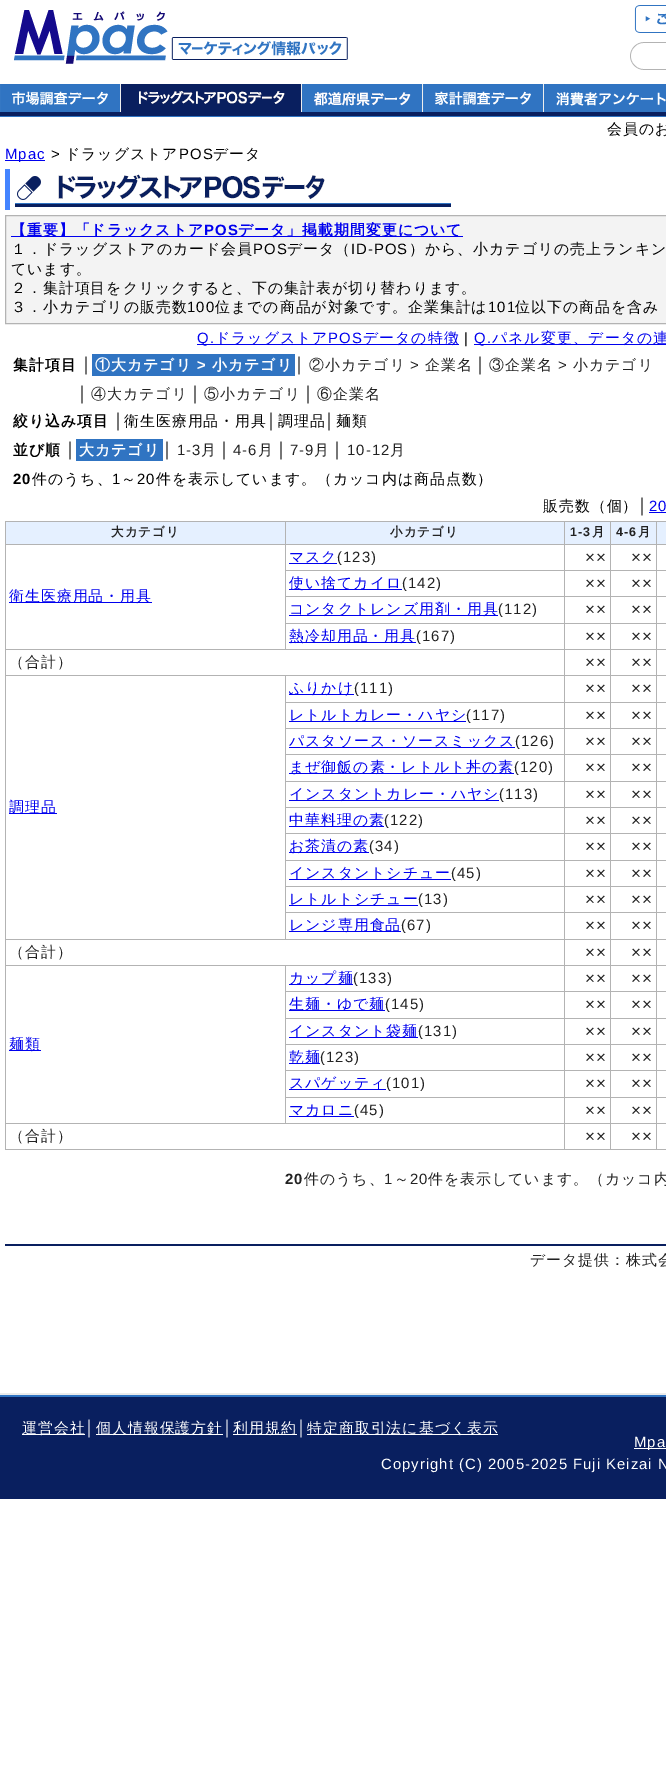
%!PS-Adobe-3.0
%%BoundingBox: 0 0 666 1787
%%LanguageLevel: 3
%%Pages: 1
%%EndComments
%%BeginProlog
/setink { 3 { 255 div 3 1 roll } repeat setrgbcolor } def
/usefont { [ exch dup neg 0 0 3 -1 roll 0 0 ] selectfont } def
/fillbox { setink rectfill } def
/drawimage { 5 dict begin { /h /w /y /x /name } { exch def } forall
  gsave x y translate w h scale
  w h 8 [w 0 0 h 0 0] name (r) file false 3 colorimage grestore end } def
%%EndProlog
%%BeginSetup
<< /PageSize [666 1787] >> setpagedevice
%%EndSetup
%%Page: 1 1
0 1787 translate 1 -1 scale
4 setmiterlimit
0 0 666 1787 255 255 255 fillbox
(assets/img1.rgb) 14 10 334 54 drawimage
(assets/img2.rgb) 634 5 32 28 drawimage
(assets/img3.rgb) 630 42 36 28 drawimage
120 84 1 28 238 238 238 fillbox
(assets/img4.rgb) 0 84 120 28 drawimage
301 84 1 28 238 238 238 fillbox
(assets/img5.rgb) 121 84 180 28 drawimage
422 84 1 28 238 238 238 fillbox
(assets/img6.rgb) 302 84 120 28 drawimage
543 84 1 28 238 238 238 fillbox
(assets/img7.rgb) 423 84 120 28 drawimage
(assets/img8.rgb) 544 84 122 28 drawimage
0 112 666 4 9 31 95 fillbox
0 116 666 1 48 116 194 fillbox
/WenQuanYiZenHei-Medium 14.9 usefont
0 0 0 setink
607 134 moveto 1 0 (会員のお) ashow
5 160 40 1 0 0 238 fillbox
/LiberationSans-Regular 14.9 usefont
5 159 moveto 1 0 (Mpac) ashow
0 0 0 setink
51 159 moveto 1 0 (>) ashow
/WenQuanYiZenHei-Medium 14.9 usefont
65 159 moveto 1 0 (ドラッグストア) ashow
/LiberationSans-Regular 14.9 usefont
179 159 moveto 1 0 (POS) ashow
/WenQuanYiZenHei-Medium 14.9 usefont
213 159 moveto 1 0 (データ) ashow
5 169 5 41 68 132 255 fillbox
(assets/img9.rgb) 15 174 436 33 drawimage
243 243 243 setink
5.5 215.5 moveto 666.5 215.5 lineto 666.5 323.5 lineto 5.5 323.5 lineto closepath gsave fill grestore
179 179 179 setink
stroke
11 236 452 1 0 0 238 fillbox
/WenQuanYiZenHei-Bold 14.9 usefont
11 235 moveto 1 0 (【重要】「ドラックストア) ashow
/LiberationSans-Bold 14.9 usefont
204 235 moveto 1 0 (POS) ashow
/WenQuanYiZenHei-Bold 14.9 usefont
238 235 moveto 1 0 (データ」掲載期間変更について) ashow
/WenQuanYiZenHei-Medium 14.9 usefont
0 0 0 setink
11 254 moveto 1 0 (１．ドラッグストアのカード会員) ashow
/LiberationSans-Regular 14.9 usefont
253 254 moveto 1 0 (POS) ashow
/WenQuanYiZenHei-Medium 14.9 usefont
287 254 moveto 1 0 (データ（) ashow
/LiberationSans-Regular 14.9 usefont
351 254 moveto 1 0 (ID-POS) ashow
/WenQuanYiZenHei-Medium 14.9 usefont
409 254 moveto 1 0 (）から、小カテゴリの売上ランキン) ashow
11 274 moveto 1 0 (ています。) ashow
11 293 moveto 1 0 (２．集計項目をクリックすると、下の集計表が切り替わります。) ashow
11 312 moveto 1 0 (３．小カテゴリの販売数) ashow
/LiberationSans-Regular 14.9 usefont
187 312 moveto 1 0 (100) ashow
/WenQuanYiZenHei-Medium 14.9 usefont
215 312 moveto 1 0 (位までの商品が対象です。企業集計は) ashow
/LiberationSans-Regular 14.9 usefont
488 312 moveto 1 0 (101) ashow
/WenQuanYiZenHei-Medium 14.9 usefont
515 312 moveto 1 0 (位以下の商品を含み) ashow
197 344 262 1 0 0 238 fillbox
/LiberationSans-Regular 14.9 usefont
197 343 moveto 1 0 (Q.) ashow
/WenQuanYiZenHei-Medium 14.9 usefont
215 343 moveto 1 0 (ドラッグストア) ashow
/LiberationSans-Regular 14.9 usefont
328 343 moveto 1 0 (POS) ashow
/WenQuanYiZenHei-Medium 14.9 usefont
363 343 moveto 1 0 (データの特徴) ashow
/LiberationSans-Regular 14.9 usefont
0 0 0 setink
464 343 moveto 1 0 (|) ashow
474 344 192 1 0 0 238 fillbox
474 343 moveto 1 0 (Q.) ashow
/WenQuanYiZenHei-Medium 14.9 usefont
492 343 moveto 1 0 (パネル変更、データの連) ashow
/WenQuanYiZenHei-Bold 14.9 usefont
0 0 0 setink
13 370 moveto 1 0 (集計項目) ashow
/LiberationSans-Regular 14.9 usefont
82 370 moveto 1 0 (│) ashow
92 354 203 22 48 116 194 fillbox
/WenQuanYiZenHei-Bold 14.9 usefont
255 255 255 setink
95 370 moveto 1 0 (①大カテゴリ) ashow
/LiberationSans-Bold 14.9 usefont
197 370 moveto 1 0 (>) ashow
/WenQuanYiZenHei-Bold 14.9 usefont
212 370 moveto 1 0 (小カテゴリ) ashow
/LiberationSans-Regular 14.9 usefont
0 0 0 setink
295 370 moveto 1 0 (│) ashow
/WenQuanYiZenHei-Medium 14.9 usefont
34 34 34 setink
309 370 moveto 1 0 (②小カテゴリ) ashow
/LiberationSans-Regular 14.9 usefont
410 370 moveto 1 0 (>) ashow
/WenQuanYiZenHei-Medium 14.9 usefont
425 370 moveto 1 0 (企業名) ashow
/LiberationSans-Regular 14.9 usefont
0 0 0 setink
476 370 moveto 1 0 (│) ashow
/WenQuanYiZenHei-Medium 14.9 usefont
34 34 34 setink
489 370 moveto 1 0 (③企業名) ashow
/LiberationSans-Regular 14.9 usefont
558 370 moveto 1 0 (>) ashow
/WenQuanYiZenHei-Medium 14.9 usefont
573 370 moveto 1 0 (小カテゴリ) ashow
/LiberationSans-Regular 14.9 usefont
0 0 0 setink
78 399 moveto 1 0 (│) ashow
/WenQuanYiZenHei-Medium 14.9 usefont
34 34 34 setink
91 399 moveto 1 0 (④大カテゴリ) ashow
/LiberationSans-Regular 14.9 usefont
0 0 0 setink
191 399 moveto 1 0 (│) ashow
/WenQuanYiZenHei-Medium 14.9 usefont
34 34 34 setink
204 399 moveto 1 0 (⑤小カテゴリ) ashow
/LiberationSans-Regular 14.9 usefont
0 0 0 setink
304 399 moveto 1 0 (│) ashow
/WenQuanYiZenHei-Medium 14.9 usefont
34 34 34 setink
317 399 moveto 1 0 (⑥企業名) ashow
/WenQuanYiZenHei-Bold 14.9 usefont
0 0 0 setink
13 426 moveto 1 0 (絞り込み項目) ashow
/LiberationSans-Regular 14.9 usefont
114 426 moveto 1 0 (│) ashow
/WenQuanYiZenHei-Medium 14.9 usefont
124 426 moveto 1 0 (衛生医療用品・用具) ashow
/LiberationSans-Regular 14.9 usefont
267 426 moveto 1 0 (│) ashow
/WenQuanYiZenHei-Medium 14.9 usefont
278 426 moveto 1 0 (調理品) ashow
/LiberationSans-Regular 14.9 usefont
325 426 moveto 1 0 (│) ashow
/WenQuanYiZenHei-Medium 14.9 usefont
336 426 moveto 1 0 (麺類) ashow
/WenQuanYiZenHei-Bold 14.9 usefont
13 455 moveto 1 0 (並び順) ashow
/LiberationSans-Regular 14.9 usefont
66 455 moveto 1 0 (│) ashow
76 439 87 22 48 116 194 fillbox
/WenQuanYiZenHei-Bold 14.9 usefont
255 255 255 setink
79 455 moveto 1 0 (大カテゴリ) ashow
/LiberationSans-Regular 14.9 usefont
0 0 0 setink
163 455 moveto 1 0 (│) ashow
34 34 34 setink
177 455 moveto 1 0 (1‐3) ashow
/WenQuanYiZenHei-Medium 14.9 usefont
201 455 moveto 1 0 (月) ashow
/LiberationSans-Regular 14.9 usefont
0 0 0 setink
220 455 moveto 1 0 (│) ashow
34 34 34 setink
233 455 moveto 1 0 (4‐6) ashow
/WenQuanYiZenHei-Medium 14.9 usefont
258 455 moveto 1 0 (月) ashow
/LiberationSans-Regular 14.9 usefont
0 0 0 setink
277 455 moveto 1 0 (│) ashow
34 34 34 setink
290 455 moveto 1 0 (7‐9) ashow
/WenQuanYiZenHei-Medium 14.9 usefont
314 455 moveto 1 0 (月) ashow
/LiberationSans-Regular 14.9 usefont
0 0 0 setink
333 455 moveto 1 0 (│) ashow
34 34 34 setink
347 455 moveto 1 0 (10‐12) ashow
/WenQuanYiZenHei-Medium 14.9 usefont
390 455 moveto 1 0 (月) ashow
/LiberationSans-Bold 14.9 usefont
0 0 0 setink
13 484 moveto 1 0 (20) ashow
/WenQuanYiZenHei-Medium 14.9 usefont
32 484 moveto 1 0 (件のうち、) ashow
/LiberationSans-Regular 14.9 usefont
112 484 moveto 1 0 (1) ashow
/WenQuanYiZenHei-Medium 14.9 usefont
121 484 moveto 1 0 (～) ashow
/LiberationSans-Regular 14.9 usefont
137 484 moveto 1 0 (20) ashow
/WenQuanYiZenHei-Medium 14.9 usefont
156 484 moveto 1 0 (件を表示しています。（カッコ内は商品点数）) ashow
543 511 moveto 1 0 (販売数（個）) ashow
/LiberationSans-Regular 14.9 usefont
638 511 moveto 1 0 (│) ashow
0 0 238 setink
649 511 moveto 1 0 (20) ashow
649 512 17 1 0 0 238 fillbox
6 522 279 22 229 240 255 fillbox
656 521 10 1 179 179 179 fillbox
656 544 10 1 179 179 179 fillbox
656 570 10 1 179 179 179 fillbox
656 596 10 1 179 179 179 fillbox
656 623 10 1 179 179 179 fillbox
656 649 10 1 179 179 179 fillbox
656 675 10 1 179 179 179 fillbox
656 702 10 1 179 179 179 fillbox
656 728 10 1 179 179 179 fillbox
656 754 10 1 179 179 179 fillbox
656 781 10 1 179 179 179 fillbox
656 807 10 1 179 179 179 fillbox
656 833 10 1 179 179 179 fillbox
656 860 10 1 179 179 179 fillbox
656 886 10 1 179 179 179 fillbox
656 912 10 1 179 179 179 fillbox
656 939 10 1 179 179 179 fillbox
656 965 10 1 179 179 179 fillbox
656 991 10 1 179 179 179 fillbox
656 1018 10 1 179 179 179 fillbox
656 1044 10 1 179 179 179 fillbox
656 1070 10 1 179 179 179 fillbox
656 1097 10 1 179 179 179 fillbox
656 1123 10 1 179 179 179 fillbox
656 1149 10 1 179 179 179 fillbox
656 1123 1 27 179 179 179 fillbox
610 1123 47 1 179 179 179 fillbox
656 1097 1 27 179 179 179 fillbox
610 1097 47 1 179 179 179 fillbox
656 1070 1 28 179 179 179 fillbox
610 1070 47 1 179 179 179 fillbox
656 1044 1 27 179 179 179 fillbox
610 1044 47 1 179 179 179 fillbox
656 1018 1 27 179 179 179 fillbox
610 1018 47 1 179 179 179 fillbox
656 991 1 28 179 179 179 fillbox
610 991 47 1 179 179 179 fillbox
656 965 1 27 179 179 179 fillbox
610 965 47 1 179 179 179 fillbox
656 939 1 27 179 179 179 fillbox
610 939 47 1 179 179 179 fillbox
656 912 1 28 179 179 179 fillbox
610 912 47 1 179 179 179 fillbox
656 886 1 27 179 179 179 fillbox
610 886 47 1 179 179 179 fillbox
656 860 1 27 179 179 179 fillbox
610 860 47 1 179 179 179 fillbox
656 833 1 28 179 179 179 fillbox
610 833 47 1 179 179 179 fillbox
656 807 1 27 179 179 179 fillbox
610 807 47 1 179 179 179 fillbox
656 781 1 27 179 179 179 fillbox
610 781 47 1 179 179 179 fillbox
656 754 1 28 179 179 179 fillbox
610 754 47 1 179 179 179 fillbox
656 728 1 27 179 179 179 fillbox
610 728 47 1 179 179 179 fillbox
656 702 1 27 179 179 179 fillbox
610 702 47 1 179 179 179 fillbox
656 675 1 28 179 179 179 fillbox
610 675 47 1 179 179 179 fillbox
656 649 1 27 179 179 179 fillbox
610 649 47 1 179 179 179 fillbox
656 623 1 27 179 179 179 fillbox
610 623 47 1 179 179 179 fillbox
656 596 1 28 179 179 179 fillbox
610 596 47 1 179 179 179 fillbox
656 570 1 27 179 179 179 fillbox
610 570 47 1 179 179 179 fillbox
656 544 1 27 179 179 179 fillbox
610 544 47 1 179 179 179 fillbox
656 521 1 24 179 179 179 fillbox
610 521 47 1 179 179 179 fillbox
610 1149 47 1 179 179 179 fillbox
610 1123 1 27 179 179 179 fillbox
564 1123 47 1 179 179 179 fillbox
610 1097 1 27 179 179 179 fillbox
564 1097 47 1 179 179 179 fillbox
610 1070 1 28 179 179 179 fillbox
564 1070 47 1 179 179 179 fillbox
610 1044 1 27 179 179 179 fillbox
564 1044 47 1 179 179 179 fillbox
610 1018 1 27 179 179 179 fillbox
564 1018 47 1 179 179 179 fillbox
610 991 1 28 179 179 179 fillbox
564 991 47 1 179 179 179 fillbox
610 965 1 27 179 179 179 fillbox
564 965 47 1 179 179 179 fillbox
610 939 1 27 179 179 179 fillbox
564 939 47 1 179 179 179 fillbox
610 912 1 28 179 179 179 fillbox
564 912 47 1 179 179 179 fillbox
610 886 1 27 179 179 179 fillbox
564 886 47 1 179 179 179 fillbox
610 860 1 27 179 179 179 fillbox
564 860 47 1 179 179 179 fillbox
610 833 1 28 179 179 179 fillbox
564 833 47 1 179 179 179 fillbox
610 807 1 27 179 179 179 fillbox
564 807 47 1 179 179 179 fillbox
610 781 1 27 179 179 179 fillbox
564 781 47 1 179 179 179 fillbox
610 754 1 28 179 179 179 fillbox
564 754 47 1 179 179 179 fillbox
610 728 1 27 179 179 179 fillbox
564 728 47 1 179 179 179 fillbox
610 702 1 27 179 179 179 fillbox
564 702 47 1 179 179 179 fillbox
610 675 1 28 179 179 179 fillbox
564 675 47 1 179 179 179 fillbox
610 649 1 27 179 179 179 fillbox
564 649 47 1 179 179 179 fillbox
610 623 1 27 179 179 179 fillbox
564 623 47 1 179 179 179 fillbox
610 596 1 28 179 179 179 fillbox
564 596 47 1 179 179 179 fillbox
610 570 1 27 179 179 179 fillbox
564 570 47 1 179 179 179 fillbox
610 544 1 27 179 179 179 fillbox
564 544 47 1 179 179 179 fillbox
610 521 1 24 179 179 179 fillbox
564 521 47 1 179 179 179 fillbox
564 1149 47 1 179 179 179 fillbox
564 1123 1 27 179 179 179 fillbox
5 1123 560 1 179 179 179 fillbox
564 1097 1 27 179 179 179 fillbox
285 1097 280 1 179 179 179 fillbox
564 1070 1 28 179 179 179 fillbox
285 1070 280 1 179 179 179 fillbox
564 1044 1 27 179 179 179 fillbox
285 1044 280 1 179 179 179 fillbox
564 1018 1 27 179 179 179 fillbox
285 1018 280 1 179 179 179 fillbox
564 991 1 28 179 179 179 fillbox
285 991 280 1 179 179 179 fillbox
564 965 1 27 179 179 179 fillbox
285 965 280 1 179 179 179 fillbox
564 939 1 27 179 179 179 fillbox
5 939 560 1 179 179 179 fillbox
564 912 1 28 179 179 179 fillbox
285 912 280 1 179 179 179 fillbox
564 886 1 27 179 179 179 fillbox
285 886 280 1 179 179 179 fillbox
564 860 1 27 179 179 179 fillbox
285 860 280 1 179 179 179 fillbox
564 833 1 28 179 179 179 fillbox
285 833 280 1 179 179 179 fillbox
564 807 1 27 179 179 179 fillbox
285 807 280 1 179 179 179 fillbox
564 781 1 27 179 179 179 fillbox
285 781 280 1 179 179 179 fillbox
564 754 1 28 179 179 179 fillbox
285 754 280 1 179 179 179 fillbox
564 728 1 27 179 179 179 fillbox
285 728 280 1 179 179 179 fillbox
564 702 1 27 179 179 179 fillbox
285 702 280 1 179 179 179 fillbox
564 675 1 28 179 179 179 fillbox
285 675 280 1 179 179 179 fillbox
564 649 1 27 179 179 179 fillbox
5 649 560 1 179 179 179 fillbox
564 623 1 27 179 179 179 fillbox
285 623 280 1 179 179 179 fillbox
564 596 1 28 179 179 179 fillbox
285 596 280 1 179 179 179 fillbox
564 570 1 27 179 179 179 fillbox
285 570 280 1 179 179 179 fillbox
564 544 1 27 179 179 179 fillbox
285 544 280 1 179 179 179 fillbox
564 521 1 24 179 179 179 fillbox
285 521 280 1 179 179 179 fillbox
285 623 1 27 179 179 179 fillbox
285 596 1 28 179 179 179 fillbox
285 570 1 27 179 179 179 fillbox
285 544 1 27 179 179 179 fillbox
5 544 281 1 179 179 179 fillbox
285 521 1 24 179 179 179 fillbox
5 521 281 1 179 179 179 fillbox
285 912 1 28 179 179 179 fillbox
285 886 1 27 179 179 179 fillbox
285 860 1 27 179 179 179 fillbox
285 833 1 28 179 179 179 fillbox
285 807 1 27 179 179 179 fillbox
285 781 1 27 179 179 179 fillbox
285 754 1 28 179 179 179 fillbox
285 728 1 27 179 179 179 fillbox
285 702 1 27 179 179 179 fillbox
285 675 1 28 179 179 179 fillbox
5 675 281 1 179 179 179 fillbox
285 1097 1 27 179 179 179 fillbox
285 1070 1 28 179 179 179 fillbox
285 1044 1 27 179 179 179 fillbox
285 1018 1 27 179 179 179 fillbox
285 991 1 28 179 179 179 fillbox
285 965 1 27 179 179 179 fillbox
5 965 281 1 179 179 179 fillbox
5 1149 560 1 179 179 179 fillbox
5 1123 1 27 179 179 179 fillbox
5 965 1 159 179 179 179 fillbox
5 939 1 27 179 179 179 fillbox
5 675 1 265 179 179 179 fillbox
5 649 1 27 179 179 179 fillbox
5 544 1 106 179 179 179 fillbox
5 521 1 24 179 179 179 fillbox
/WenQuanYiZenHei-Bold 12.5 usefont
34 34 34 setink
111 536 moveto 1 0 (大カテゴリ) ashow
286 522 278 22 229 240 255 fillbox
34 34 34 setink
390 536 moveto 1 0 (小カテゴリ) ashow
565 522 45 22 229 240 255 fillbox
/LiberationSans-Bold 12.5 usefont
34 34 34 setink
570 536 moveto 1 0 (1‐3) ashow
/WenQuanYiZenHei-Bold 12.5 usefont
592 536 moveto 1 0 (月) ashow
611 522 45 22 229 240 255 fillbox
/LiberationSans-Bold 12.5 usefont
34 34 34 setink
616 536 moveto 1 0 (4‐6) ashow
/WenQuanYiZenHei-Bold 12.5 usefont
638 536 moveto 1 0 (月) ashow
657 522 9 22 229 240 255 fillbox
289 563 48 1 0 0 238 fillbox
/WenQuanYiZenHei-Medium 14.9 usefont
289 562 moveto 1 0 (マスク) ashow
/LiberationSans-Regular 14.9 usefont
34 34 34 setink
337 562 moveto 1 0 (\(123\)) ashow
/LiberationSans-Regular 17 usefont
585 563 moveto 1 0 (××) ashow
631 563 moveto 1 0 (××) ashow
9 602 143 1 0 0 238 fillbox
/WenQuanYiZenHei-Medium 14.9 usefont
9 601 moveto 1 0 (衛生医療用品・用具) ashow
289 589 113 1 0 0 238 fillbox
289 588 moveto 1 0 (使い捨てカイロ) ashow
/LiberationSans-Regular 14.9 usefont
34 34 34 setink
402 588 moveto 1 0 (\(142\)) ashow
/LiberationSans-Regular 17 usefont
585 589 moveto 1 0 (××) ashow
631 589 moveto 1 0 (××) ashow
289 615 209 1 0 0 238 fillbox
/WenQuanYiZenHei-Medium 14.9 usefont
289 614 moveto 1 0 (コンタクトレンズ用剤・用具) ashow
/LiberationSans-Regular 14.9 usefont
34 34 34 setink
498 614 moveto 1 0 (\(112\)) ashow
/LiberationSans-Regular 17 usefont
585 615 moveto 1 0 (××) ashow
631 615 moveto 1 0 (××) ashow
289 642 127 1 0 0 238 fillbox
/WenQuanYiZenHei-Medium 14.9 usefont
289 641 moveto 1 0 (熱冷却用品・用具) ashow
/LiberationSans-Regular 14.9 usefont
34 34 34 setink
416 641 moveto 1 0 (\(167\)) ashow
/LiberationSans-Regular 17 usefont
585 642 moveto 1 0 (××) ashow
631 642 moveto 1 0 (××) ashow
/WenQuanYiZenHei-Medium 14.9 usefont
9 667 moveto 1 0 (（合計）) ashow
/LiberationSans-Regular 17 usefont
585 668 moveto 1 0 (××) ashow
631 668 moveto 1 0 (××) ashow
289 694 65 1 0 0 238 fillbox
/WenQuanYiZenHei-Medium 14.9 usefont
289 693 moveto 1 0 (ふりかけ) ashow
/LiberationSans-Regular 14.9 usefont
34 34 34 setink
354 693 moveto 1 0 (\(111\)) ashow
/LiberationSans-Regular 17 usefont
585 694 moveto 1 0 (××) ashow
631 694 moveto 1 0 (××) ashow
9 813 48 1 0 0 238 fillbox
/WenQuanYiZenHei-Medium 14.9 usefont
9 812 moveto 1 0 (調理品) ashow
289 721 177 1 0 0 238 fillbox
289 720 moveto 1 0 (レトルトカレー・ハヤシ) ashow
/LiberationSans-Regular 14.9 usefont
34 34 34 setink
466 720 moveto 1 0 (\(117\)) ashow
/LiberationSans-Regular 17 usefont
585 721 moveto 1 0 (××) ashow
631 721 moveto 1 0 (××) ashow
289 747 226 1 0 0 238 fillbox
/WenQuanYiZenHei-Medium 14.9 usefont
289 746 moveto 1 0 (パスタソース・ソースミックス) ashow
/LiberationSans-Regular 14.9 usefont
34 34 34 setink
515 746 moveto 1 0 (\(126\)) ashow
/LiberationSans-Regular 17 usefont
585 747 moveto 1 0 (××) ashow
631 747 moveto 1 0 (××) ashow
289 773 225 1 0 0 238 fillbox
/WenQuanYiZenHei-Medium 14.9 usefont
289 772 moveto 1 0 (まぜ御飯の素・レトルト丼の素) ashow
/LiberationSans-Regular 14.9 usefont
34 34 34 setink
514 772 moveto 1 0 (\(120\)) ashow
/LiberationSans-Regular 17 usefont
585 773 moveto 1 0 (××) ashow
631 773 moveto 1 0 (××) ashow
289 800 210 1 0 0 238 fillbox
/WenQuanYiZenHei-Medium 14.9 usefont
289 799 moveto 1 0 (インスタントカレー・ハヤシ) ashow
/LiberationSans-Regular 14.9 usefont
34 34 34 setink
499 799 moveto 1 0 (\(113\)) ashow
/LiberationSans-Regular 17 usefont
585 800 moveto 1 0 (××) ashow
631 800 moveto 1 0 (××) ashow
289 826 95 1 0 0 238 fillbox
/WenQuanYiZenHei-Medium 14.9 usefont
289 825 moveto 1 0 (中華料理の素) ashow
/LiberationSans-Regular 14.9 usefont
34 34 34 setink
384 825 moveto 1 0 (\(122\)) ashow
/LiberationSans-Regular 17 usefont
585 826 moveto 1 0 (××) ashow
631 826 moveto 1 0 (××) ashow
289 852 80 1 0 0 238 fillbox
/WenQuanYiZenHei-Medium 14.9 usefont
289 851 moveto 1 0 (お茶漬の素) ashow
/LiberationSans-Regular 14.9 usefont
34 34 34 setink
369 851 moveto 1 0 (\(34\)) ashow
/LiberationSans-Regular 17 usefont
585 852 moveto 1 0 (××) ashow
631 852 moveto 1 0 (××) ashow
289 879 162 1 0 0 238 fillbox
/WenQuanYiZenHei-Medium 14.9 usefont
289 878 moveto 1 0 (インスタントシチュー) ashow
/LiberationSans-Regular 14.9 usefont
34 34 34 setink
451 878 moveto 1 0 (\(45\)) ashow
/LiberationSans-Regular 17 usefont
585 879 moveto 1 0 (××) ashow
631 879 moveto 1 0 (××) ashow
289 905 129 1 0 0 238 fillbox
/WenQuanYiZenHei-Medium 14.9 usefont
289 904 moveto 1 0 (レトルトシチュー) ashow
/LiberationSans-Regular 14.9 usefont
34 34 34 setink
418 904 moveto 1 0 (\(13\)) ashow
/LiberationSans-Regular 17 usefont
585 905 moveto 1 0 (××) ashow
631 905 moveto 1 0 (××) ashow
289 931 112 1 0 0 238 fillbox
/WenQuanYiZenHei-Medium 14.9 usefont
289 930 moveto 1 0 (レンジ専用食品) ashow
/LiberationSans-Regular 14.9 usefont
34 34 34 setink
401 930 moveto 1 0 (\(67\)) ashow
/LiberationSans-Regular 17 usefont
585 931 moveto 1 0 (××) ashow
631 931 moveto 1 0 (××) ashow
/WenQuanYiZenHei-Medium 14.9 usefont
9 957 moveto 1 0 (（合計）) ashow
/LiberationSans-Regular 17 usefont
585 958 moveto 1 0 (××) ashow
631 958 moveto 1 0 (××) ashow
289 984 64 1 0 0 238 fillbox
/WenQuanYiZenHei-Medium 14.9 usefont
289 983 moveto 1 0 (カップ麺) ashow
/LiberationSans-Regular 14.9 usefont
34 34 34 setink
353 983 moveto 1 0 (\(133\)) ashow
/LiberationSans-Regular 17 usefont
585 984 moveto 1 0 (××) ashow
631 984 moveto 1 0 (××) ashow
9 1050 32 1 0 0 238 fillbox
/WenQuanYiZenHei-Medium 14.9 usefont
9 1049 moveto 1 0 (麺類) ashow
289 1010 96 1 0 0 238 fillbox
289 1009 moveto 1 0 (生麺・ゆで麺) ashow
/LiberationSans-Regular 14.9 usefont
34 34 34 setink
385 1009 moveto 1 0 (\(145\)) ashow
/LiberationSans-Regular 17 usefont
585 1010 moveto 1 0 (××) ashow
631 1010 moveto 1 0 (××) ashow
289 1037 129 1 0 0 238 fillbox
/WenQuanYiZenHei-Medium 14.9 usefont
289 1036 moveto 1 0 (インスタント袋麺) ashow
/LiberationSans-Regular 14.9 usefont
34 34 34 setink
418 1036 moveto 1 0 (\(131\)) ashow
/LiberationSans-Regular 17 usefont
585 1037 moveto 1 0 (××) ashow
631 1037 moveto 1 0 (××) ashow
289 1063 31 1 0 0 238 fillbox
/WenQuanYiZenHei-Medium 14.9 usefont
289 1062 moveto 1 0 (乾麺) ashow
/LiberationSans-Regular 14.9 usefont
34 34 34 setink
320 1062 moveto 1 0 (\(123\)) ashow
/LiberationSans-Regular 17 usefont
585 1063 moveto 1 0 (××) ashow
631 1063 moveto 1 0 (××) ashow
289 1089 97 1 0 0 238 fillbox
/WenQuanYiZenHei-Medium 14.9 usefont
289 1088 moveto 1 0 (スパゲッティ) ashow
/LiberationSans-Regular 14.9 usefont
34 34 34 setink
386 1088 moveto 1 0 (\(101\)) ashow
/LiberationSans-Regular 17 usefont
585 1089 moveto 1 0 (××) ashow
631 1089 moveto 1 0 (××) ashow
289 1116 65 1 0 0 238 fillbox
/WenQuanYiZenHei-Medium 14.9 usefont
289 1115 moveto 1 0 (マカロニ) ashow
/LiberationSans-Regular 14.9 usefont
34 34 34 setink
354 1115 moveto 1 0 (\(45\)) ashow
/LiberationSans-Regular 17 usefont
585 1116 moveto 1 0 (××) ashow
631 1116 moveto 1 0 (××) ashow
/WenQuanYiZenHei-Medium 14.9 usefont
9 1141 moveto 1 0 (（合計）) ashow
/LiberationSans-Regular 17 usefont
585 1142 moveto 1 0 (××) ashow
631 1142 moveto 1 0 (××) ashow
/LiberationSans-Bold 14.9 usefont
285 1184 moveto 1 0 (20) ashow
/WenQuanYiZenHei-Medium 14.9 usefont
304 1184 moveto 1 0 (件のうち、) ashow
/LiberationSans-Regular 14.9 usefont
384 1184 moveto 1 0 (1) ashow
/WenQuanYiZenHei-Medium 14.9 usefont
394 1184 moveto 1 0 (～) ashow
/LiberationSans-Regular 14.9 usefont
410 1184 moveto 1 0 (20) ashow
/WenQuanYiZenHei-Medium 14.9 usefont
428 1184 moveto 1 0 (件を表示しています。（カッコ内) ashow
5 1244 661 2 9 31 95 fillbox
34 34 34 setink
530 1265 moveto 1 0 (データ提供：株式会) ashow
(assets/img10.rgb) 0 1393 666 106 drawimage
22 1434 63 1 255 255 255 fillbox
22 1433 moveto 1 0 (運営会社) ashow
/LiberationSans-Regular 14.9 usefont
85 1433 moveto 1 0 (│) ashow
96 1434 127 1 255 255 255 fillbox
/WenQuanYiZenHei-Medium 14.9 usefont
96 1433 moveto 1 0 (個人情報保護方針) ashow
/LiberationSans-Regular 14.9 usefont
223 1433 moveto 1 0 (│) ashow
233 1434 64 1 255 255 255 fillbox
/WenQuanYiZenHei-Medium 14.9 usefont
233 1433 moveto 1 0 (利用規約) ashow
/LiberationSans-Regular 14.9 usefont
297 1433 moveto 1 0 (│) ashow
307 1434 191 1 255 255 255 fillbox
/WenQuanYiZenHei-Medium 14.9 usefont
307 1433 moveto 1 0 (特定商取引法に基づく表示) ashow
634 1448 32 1 255 255 255 fillbox
/LiberationSans-Regular 14.9 usefont
634 1447 moveto 1 0 (Mpa) ashow
381 1469 moveto 1 0 (Copyright \(C\) 2005-2025 Fuji Keizai N) ashow
showpage
%%EOF
